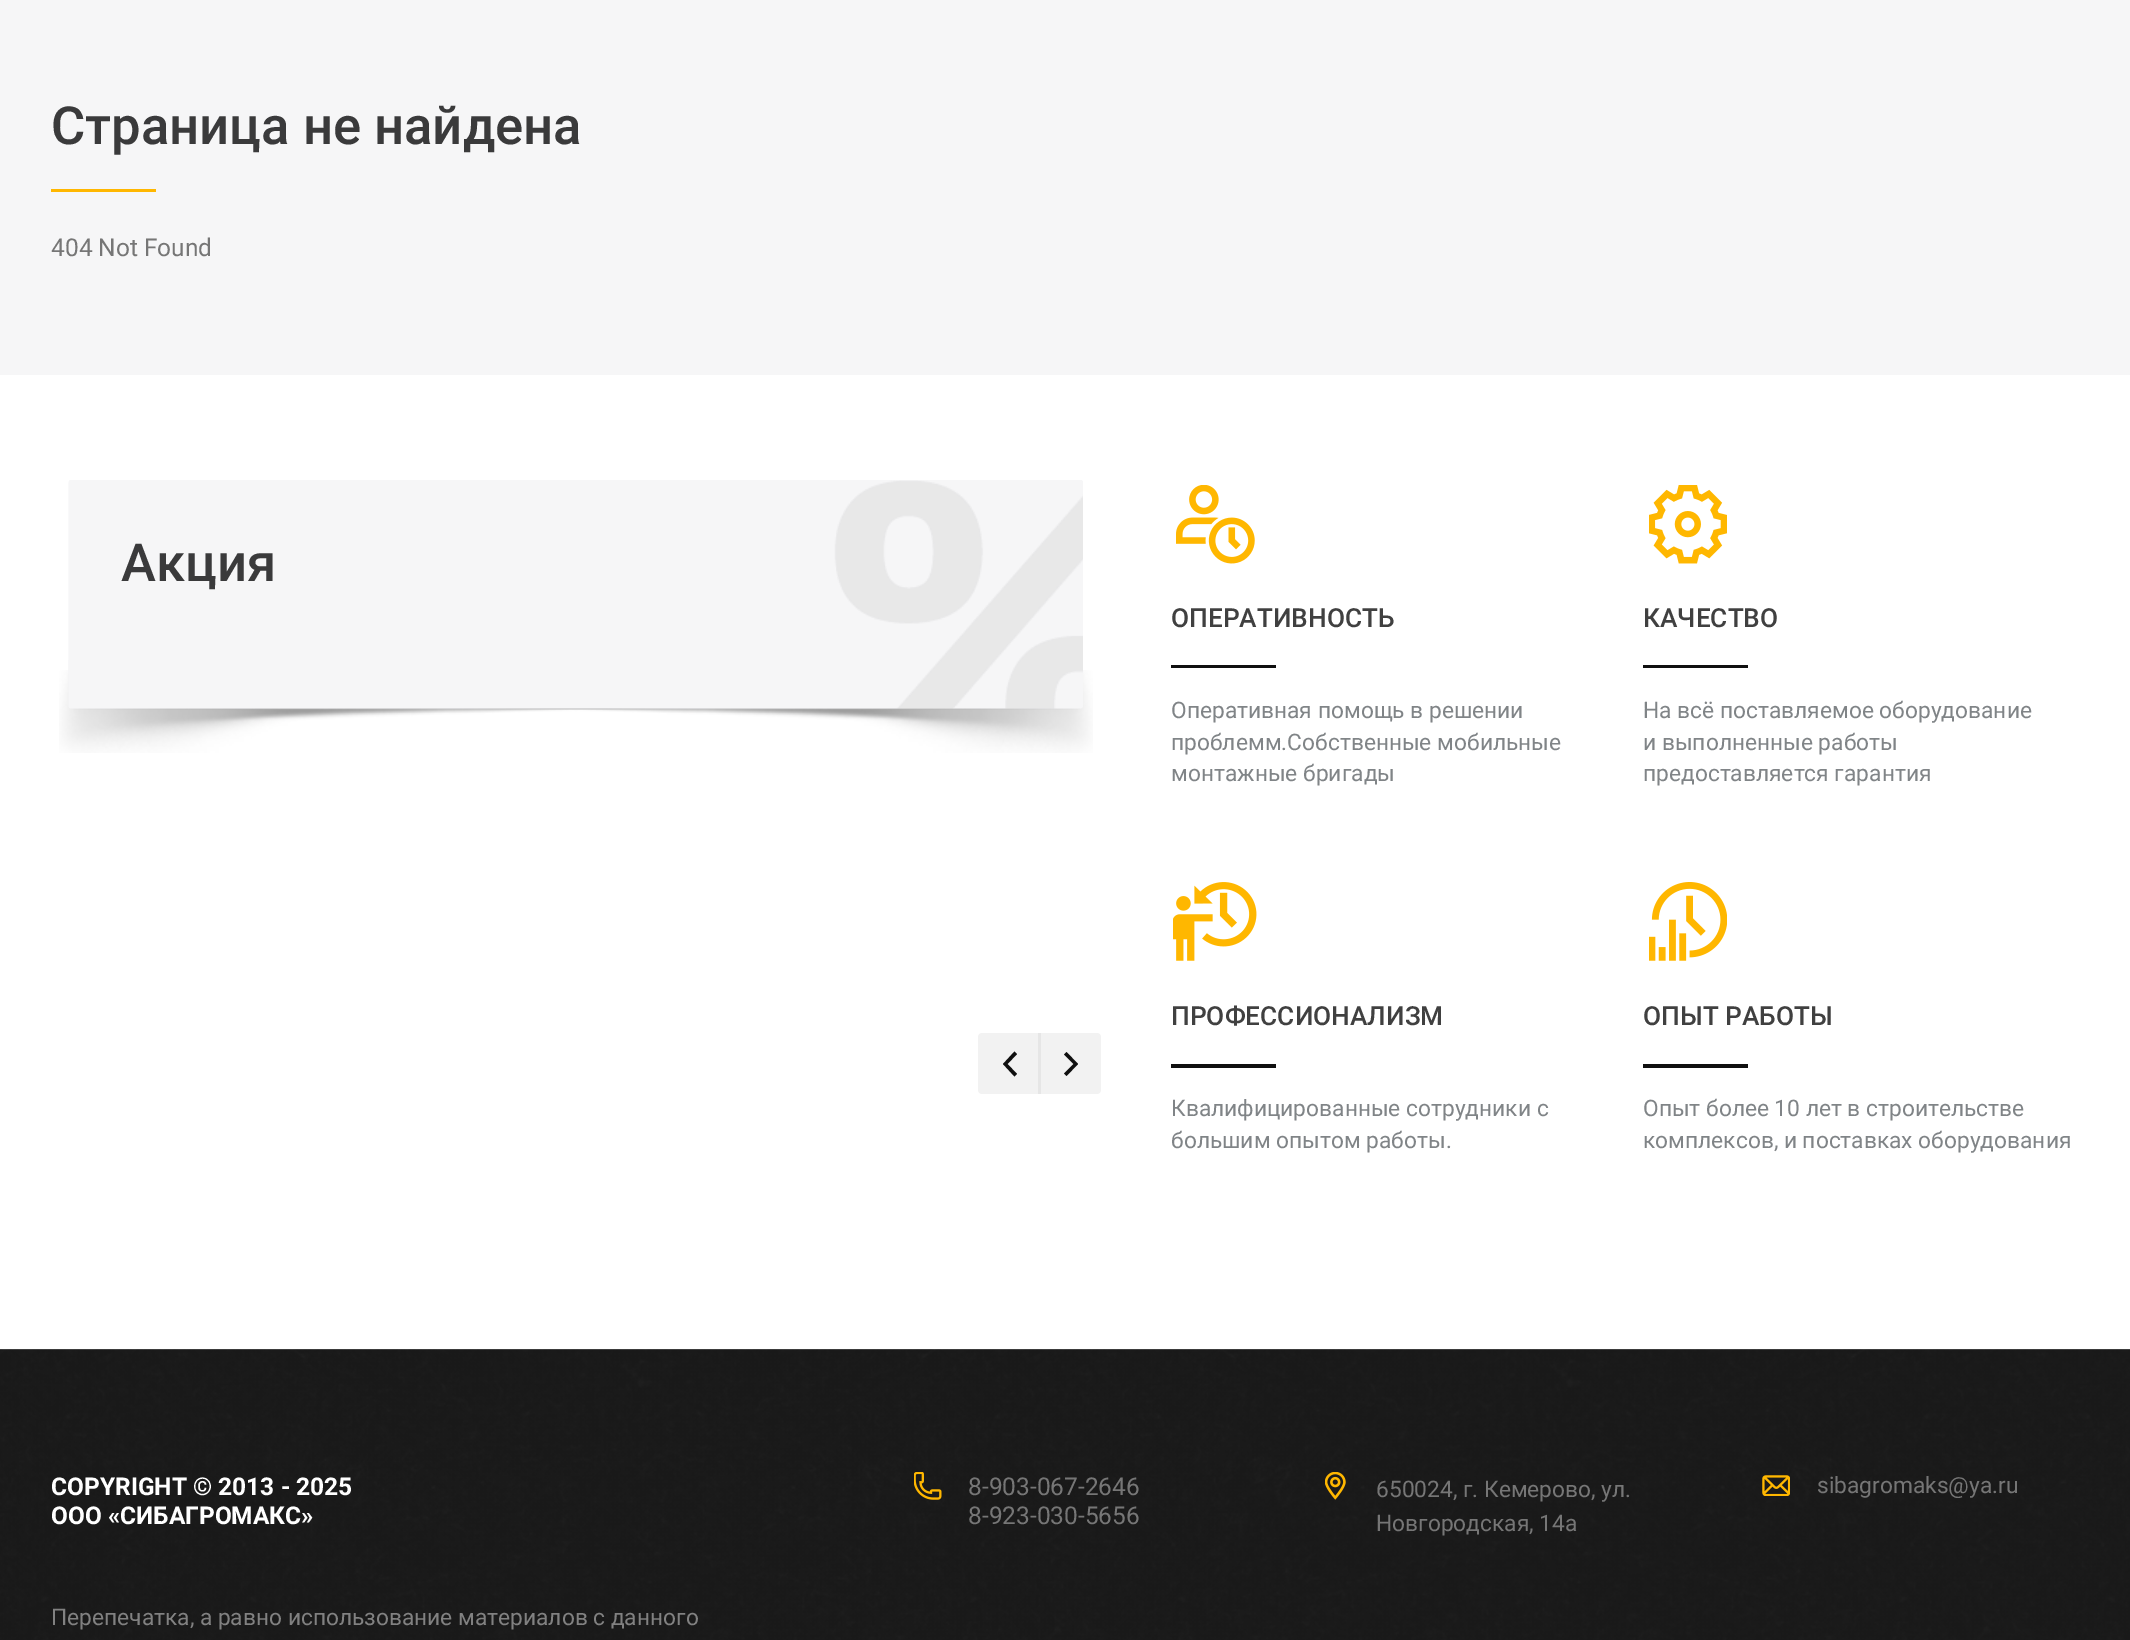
%!PS-Adobe-3.0
%%BoundingBox: 0 0 2130 1640
%%LanguageLevel: 3
%%Pages: 1
%%EndComments
%%BeginProlog
/setink { 3 { 255 div 3 1 roll } repeat setrgbcolor } def
/usefont { [ exch dup neg 0 0 3 -1 roll 0 0 ] selectfont } def
/drawtext { setink usefont moveto show } def
/fillbox { setink rectfill } def
/drawimage { 5 dict begin { /h /w /y /x /name } { exch def } forall
  gsave x y translate w h scale
  w h 8 [w 0 0 h 0 0] name (r) file false 3 colorimage grestore end } def
%%EndProlog
%%BeginSetup
<< /PageSize [2130 1640] >> setpagedevice
%%EndSetup
%%Page: 1 1
0 1640 translate 1 -1 scale
4 setmiterlimit
0 0 2130 1640 255 255 255 fillbox
0 0 2130 375 246 246 247 fillbox
51 189 105 3 255 183 0 fillbox
(Страница не найдена) 51 144 /Roboto-Medium 52.5 58 58 59 drawtext
(404 Not Found) 51 256 /Roboto-Regular 24.5 118 118 118 drawtext
(assets/img1.rgb) 59 670 1034 83 drawimage
(assets/img2.rgb) 68 480 1015 229 drawimage
(Акция) 121 581 /Roboto-Medium 52.5 58 58 59 drawtext
242 242 242 setink
982 1033 moveto 1040 1033 lineto 1040 1094 lineto 982 1094 lineto 980 1094 978 1092 978 1090 curveto 978 1037 lineto 978 1035 980 1033 982 1033 curveto closepath fill
16 16 16 setink
1014.5 1076.5 moveto 1003 1064 lineto 1014.5 1051.5 lineto 1017 1054 lineto 1007.5 1064 lineto 1017 1074 lineto closepath eofill
1038 1033 2 61 230 230 230 fillbox
242 242 242 setink
1040 1033 moveto 1097 1033 lineto 1099 1033 1101 1035 1101 1037 curveto 1101 1090 lineto 1101 1092 1099 1094 1097 1094 curveto 1040 1094 lineto closepath fill
16 16 16 setink
1066.5 1076 moveto 1078 1064 lineto 1066.5 1052 lineto 1064 1054.5 lineto 1073.5 1064 lineto 1064 1073.5 lineto closepath eofill
1040 1033 1 61 230 230 230 fillbox
(assets/img3.rgb) 1176 485 79 79 drawimage
1171 665 105 3 16 16 16 fillbox
(ОПЕРАТИВНОСТЬ) 1171 627 /Roboto-Medium 26.25 64 64 64 drawtext
(Оперативная помощь в решении) 1171 718 /Roboto-Regular 22.75 128 132 135 drawtext
(проблемм.Собственные мобильные) 1171 750 /Roboto-Regular 22.75 128 132 135 drawtext
(монтажные бригады) 1171 781 /Roboto-Regular 22.75 128 132 135 drawtext
(assets/img4.rgb) 1649 485 78 79 drawimage
1643 665 105 3 16 16 16 fillbox
(КАЧЕСТВО) 1643 627 /Roboto-Medium 26.25 64 64 64 drawtext
(На всё поставляемое оборудование) 1643 718 /Roboto-Regular 22.75 128 132 135 drawtext
(и выполненные работы) 1643 750 /Roboto-Regular 22.75 128 132 135 drawtext
(предоставляется гарантия) 1643 781 /Roboto-Regular 22.75 128 132 135 drawtext
(assets/img5.rgb) 1173 882 84 79 drawimage
1171 1064 105 4 16 16 16 fillbox
(ПРОФЕССИОНАЛИЗМ) 1171 1025 /Roboto-Medium 26.25 64 64 64 drawtext
(Квалифицированные сотрудники с) 1171 1116 /Roboto-Regular 22.75 128 132 135 drawtext
(большим опытом работы.) 1171 1148 /Roboto-Regular 22.75 128 132 135 drawtext
(assets/img6.rgb) 1649 882 78 79 drawimage
1643 1064 105 4 16 16 16 fillbox
(ОПЫТ РАБОТЫ) 1643 1025 /Roboto-Medium 26.25 64 64 64 drawtext
(Опыт более 10 лет в строительстве) 1643 1116 /Roboto-Regular 22.75 128 132 135 drawtext
(комплексов, и поставках оборудования) 1643 1148 /Roboto-Regular 22.75 128 132 135 drawtext
(assets/img7.rgb) 0 1349 2130 291 drawimage
(COPYRIGHT © 2013 - 2025) 51 1495 /Roboto-Bold 24.5 255 255 255 drawtext
(ООО «СИБАГРОМАКС») 51 1524 /Roboto-Bold 24.5 255 255 255 drawtext
(Перепечатка, а равно использование материалов с данного) 51 1625 /Roboto-Regular 22.75 129 129 129 drawtext
(assets/img8.rgb) 914 1472 28 28 drawimage
(8-903-067-2646) 968 1495 /Roboto-Regular 24.5 118 118 118 drawtext
(8-923-030-5656) 968 1524 /Roboto-Regular 24.5 118 118 118 drawtext
(assets/img9.rgb) 1325 1472 21 28 drawimage
(650024, г. Кемерово, ул.) 1376 1497 /Roboto-Regular 22.75 118 118 118 drawtext
(Новгородская, 14а) 1376 1531 /Roboto-Regular 22.75 118 118 118 drawtext
(assets/img10.rgb) 1762 1475 28 21 drawimage
(sibagromaks@ya.ru) 1817 1493 /Roboto-Regular 22.75 118 118 118 drawtext
showpage
%%EOF
